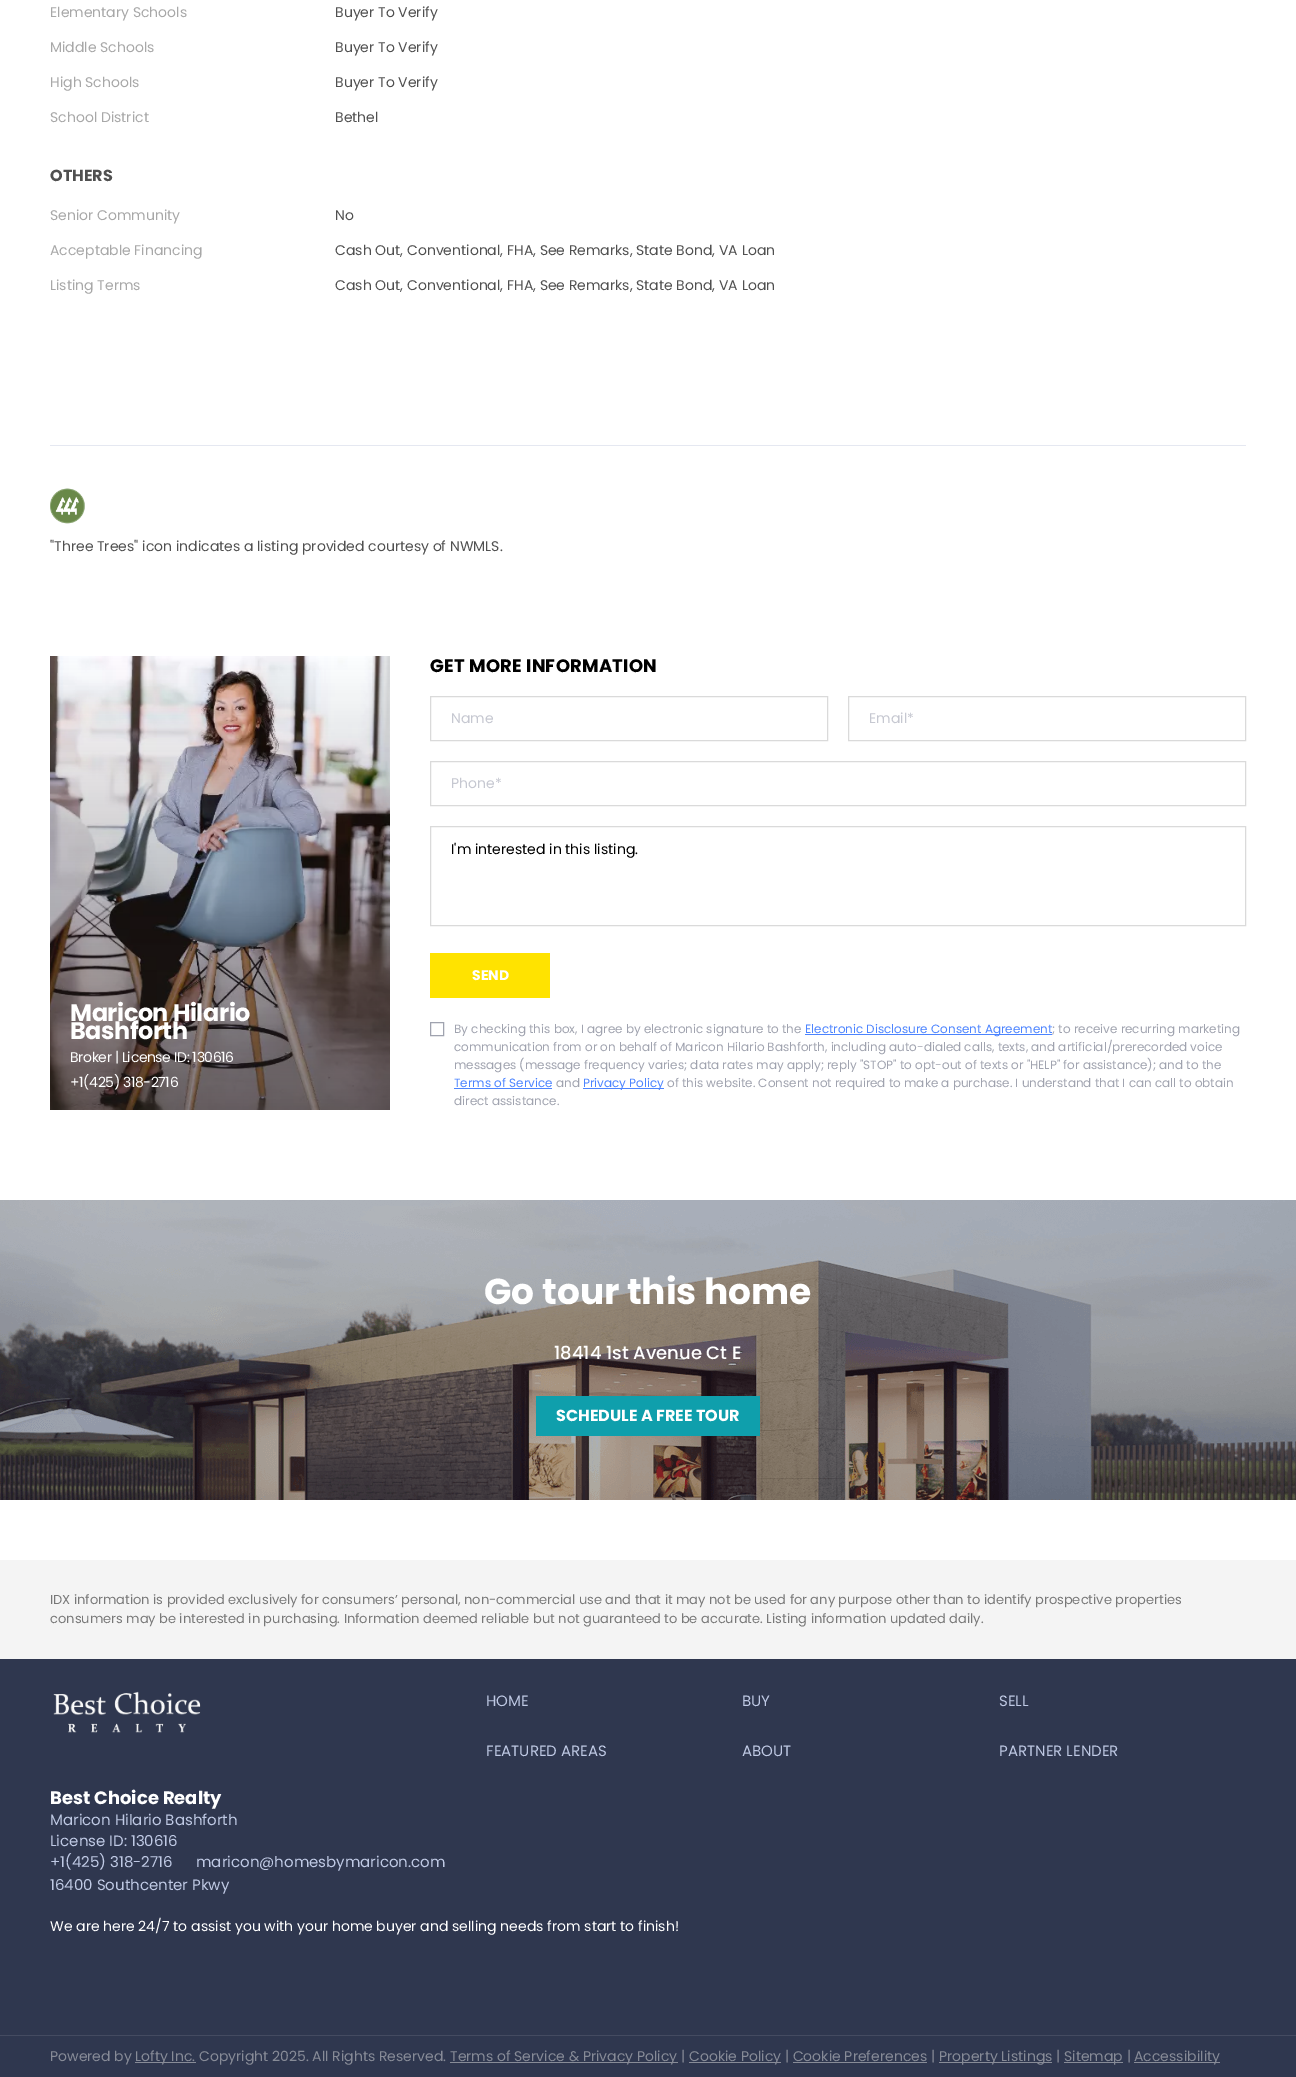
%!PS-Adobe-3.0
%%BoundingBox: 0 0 1296 2077
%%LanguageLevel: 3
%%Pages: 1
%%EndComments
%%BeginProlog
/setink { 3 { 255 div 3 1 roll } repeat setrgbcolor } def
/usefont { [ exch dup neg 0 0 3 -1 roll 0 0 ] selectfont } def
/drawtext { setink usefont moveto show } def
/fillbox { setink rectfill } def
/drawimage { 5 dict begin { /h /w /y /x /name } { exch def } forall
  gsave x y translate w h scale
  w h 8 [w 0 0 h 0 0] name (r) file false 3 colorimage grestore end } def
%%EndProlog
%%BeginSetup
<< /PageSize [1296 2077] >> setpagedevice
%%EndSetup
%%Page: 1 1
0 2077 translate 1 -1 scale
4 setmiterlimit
0 0 1296 2077 255 255 255 fillbox
(Elementary Schools) 50 17 /Poppins-Regular 14 168 168 168 drawtext
(Buyer To Verify) 335 17 /Poppins-Regular 14 80 80 80 drawtext
(Middle Schools) 50 52 /Poppins-Regular 14 168 168 168 drawtext
(Buyer To Verify) 335 52 /Poppins-Regular 14 80 80 80 drawtext
(High Schools) 50 87 /Poppins-Regular 14 168 168 168 drawtext
(Buyer To Verify) 335 87 /Poppins-Regular 14 80 80 80 drawtext
(School District) 50 122 /Poppins-Regular 14 168 168 168 drawtext
(Bethel) 335 122 /Poppins-Regular 14 80 80 80 drawtext
(OTHERS) 50 181 /Poppins-Bold 16 80 80 80 drawtext
(Senior Community) 50 220 /Poppins-Regular 14 168 168 168 drawtext
(No) 335 220 /Poppins-Regular 14 80 80 80 drawtext
(Acceptable Financing) 50 255 /Poppins-Regular 14 168 168 168 drawtext
(Cash Out, Conventional, FHA, See Remarks, State Bond, VA Loan) 335 255 /Poppins-Regular 14 80 80 80 drawtext
(Listing Terms) 50 290 /Poppins-Regular 14 168 168 168 drawtext
(Cash Out, Conventional, FHA, See Remarks, State Bond, VA Loan) 335 290 /Poppins-Regular 14 80 80 80 drawtext
50 445 1196 1 229 232 241 fillbox
(assets/img1.rgb) 50 488 35 36 drawimage
("Three Trees" icon indicates a listing provided courtesy of NWMLS.) 50 551 /Poppins-Regular 14 80 80 80 drawtext
(assets/img2.rgb) 50 656 340 454 drawimage
/Poppins-Bold 24 usefont
255 255 255 setink
70 1021 moveto -0.5 0 (Maricon Hilario) ashow
70 1039 moveto -0.5 0 (Bashforth) ashow
/Poppins-Regular 14 usefont
70 1062 moveto -0.4 0 (Broker | License ID: 130616) ashow
70 1087 moveto -0.4 0 (+1\(425\) 318-2716) ashow
/Poppins-Bold 18 usefont
0 0 0 setink
430 672 moveto 0.25 0 (GET MORE INFORMATION) ashow
218 218 218 setink
430.5 696.5 397 44 rectstroke
(Name) 451 723 /Poppins-Regular 14 198 200 209 drawtext
218 218 218 setink
848.5 696.5 397 44 rectstroke
(Email*) 869 723 /Poppins-Regular 14 198 200 209 drawtext
218 218 218 setink
430.5 761.5 815 44 rectstroke
(Phone*) 451 788 /Poppins-Regular 14 198 200 209 drawtext
218 218 218 setink
430.5 826.5 815 99 rectstroke
(I'm interested in this listing.) 451 854 /Poppins-Regular 14 0 0 0 drawtext
430 953 120 45 255 227 0 fillbox
(SEND) 472 980 /Poppins-Bold 14 255 255 255 drawtext
160 163 175 setink
430.5 1022.5 13 13 rectstroke
(By checking this box, I agree by electronic signature to the) 454 1033 /Poppins-Regular 12 160 163 175 drawtext
805 1034 247 1 76 132 255 fillbox
(Electronic Disclosure Consent Agreement) 805 1033 /Poppins-Regular 12 76 132 255 drawtext
(; to receive recurring marketing) 1052 1033 /Poppins-Regular 12 160 163 175 drawtext
(communication from or on behalf of Maricon Hilario Bashforth, including auto-dialed calls, texts, and artificial/prerecorded voice) 454 1051 /Poppins-Regular 12 160 163 175 drawtext
(messages \(message frequency varies; data rates may apply; reply "STOP" to opt-out of texts or "HELP" for assistance\); and to the) 454 1069 /Poppins-Regular 12 160 163 175 drawtext
(Terms of Service) 454 1087 /Poppins-Regular 12 76 132 255 drawtext
454 1088 98 1 76 132 255 fillbox
(and) 556 1087 /Poppins-Regular 12 160 163 175 drawtext
583 1088 81 1 76 132 255 fillbox
(Privacy Policy) 583 1087 /Poppins-Regular 12 76 132 255 drawtext
(of this website. Consent not required to make a purchase. I understand that I can call to obtain) 667 1087 /Poppins-Regular 12 160 163 175 drawtext
(direct assistance.) 454 1105 /Poppins-Regular 12 160 163 175 drawtext
(assets/img3.rgb) 0 1200 1296 300 drawimage
(Go tour this home) 484 1304 /Poppins-Bold 36 255 255 255 drawtext
(18414 1st Avenue Ct E) 554 1359 /Poppins-Medium 18 255 255 255 drawtext
536 1396 224 40 15 159 172 fillbox
(SCHEDULE A FREE TOUR) 556 1421 /Poppins-Bold 16 255 255 255 drawtext
0 1560 1296 99 244 244 244 fillbox
(IDX information is provided exclusively for consumers’ personal, non-commercial use and that it may not be used for any purpose other than to identify prospective properties) 50 1604 /Poppins-Regular 13 120 120 120 drawtext
(consumers may be interested in purchasing. Information deemed reliable but not guaranteed to be accurate. Listing information updated daily.) 50 1623 /Poppins-Regular 13 120 120 120 drawtext
0 1659 1296 418 47 55 79 fillbox
(HOME) 486 1706 /Poppins-Regular 15 191 201 228 drawtext
(BUY) 742 1706 /Poppins-Regular 15 191 201 228 drawtext
(SELL) 999 1706 /Poppins-Regular 15 191 201 228 drawtext
(FEATURED AREAS) 486 1756 /Poppins-Regular 15 191 201 228 drawtext
(ABOUT) 742 1756 /Poppins-Regular 15 191 201 228 drawtext
(PARTNER LENDER) 999 1756 /Poppins-Regular 15 191 201 228 drawtext
(assets/img4.rgb) 53 1691 148 42 drawimage
(Best Choice Realty) 50 1804 /Poppins-Bold 18 255 255 255 drawtext
(Maricon Hilario Bashforth) 50 1825 /Poppins-Regular 15 191 201 228 drawtext
(License ID: 130616) 50 1846 /Poppins-Regular 15 191 201 228 drawtext
(+1\(425\) 318-2716) 50 1867 /Poppins-Regular 15 191 201 228 drawtext
(maricon@homesbymaricon.com) 196 1867 /Poppins-Regular 15 191 201 228 drawtext
(16400 Southcenter Pkwy) 50 1890 /Poppins-Regular 15 191 201 228 drawtext
(We are here 24/7 to assist you with your home buyer and selling needs from start to finish!) 50 1931 /Poppins-Regular 14 255 255 255 drawtext
0 2035 1296 1 68 75 97 fillbox
(Powered by) 50 2061 /Poppins-Regular 14 135 139 151 drawtext
135 2062 61 1 135 139 151 fillbox
(Lofty Inc. Copyright 2025. All Rights Reserved.) 135 2061 /Poppins-Regular 14 135 139 151 drawtext
450 2062 228 1 135 139 151 fillbox
(Terms of Service & Privacy Policy |) 450 2061 /Poppins-Regular 14 135 139 151 drawtext
689 2062 92 1 135 139 151 fillbox
(Cookie Policy | Cookie Preferences |) 689 2061 /Poppins-Regular 14 135 139 151 drawtext
939 2062 113 1 135 139 151 fillbox
(Property Listings |) 939 2061 /Poppins-Regular 14 135 139 151 drawtext
1064 2062 59 1 135 139 151 fillbox
(Sitemap |) 1064 2061 /Poppins-Regular 14 135 139 151 drawtext
1134 2062 86 1 135 139 151 fillbox
(Accessibility) 1134 2061 /Poppins-Regular 14 135 139 151 drawtext
793 2062 134 1 135 139 151 fillbox
showpage
%%EOF
